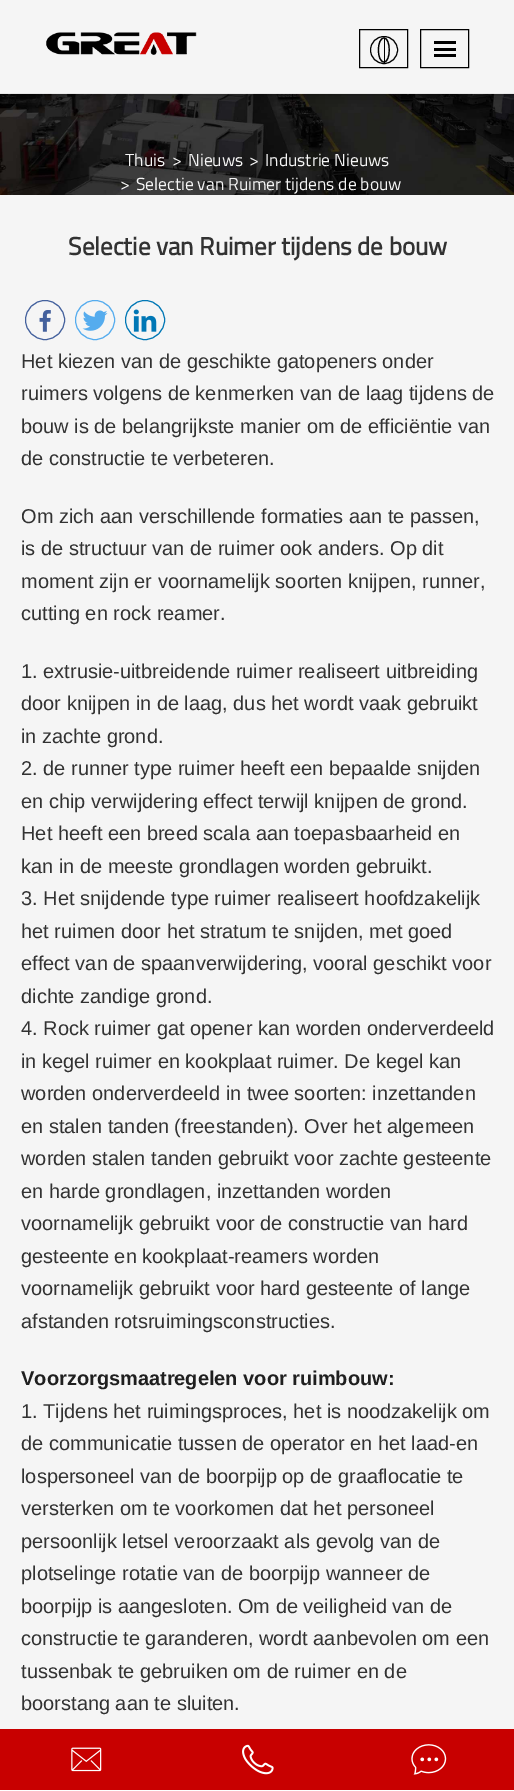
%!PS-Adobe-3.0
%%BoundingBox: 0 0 514 1791
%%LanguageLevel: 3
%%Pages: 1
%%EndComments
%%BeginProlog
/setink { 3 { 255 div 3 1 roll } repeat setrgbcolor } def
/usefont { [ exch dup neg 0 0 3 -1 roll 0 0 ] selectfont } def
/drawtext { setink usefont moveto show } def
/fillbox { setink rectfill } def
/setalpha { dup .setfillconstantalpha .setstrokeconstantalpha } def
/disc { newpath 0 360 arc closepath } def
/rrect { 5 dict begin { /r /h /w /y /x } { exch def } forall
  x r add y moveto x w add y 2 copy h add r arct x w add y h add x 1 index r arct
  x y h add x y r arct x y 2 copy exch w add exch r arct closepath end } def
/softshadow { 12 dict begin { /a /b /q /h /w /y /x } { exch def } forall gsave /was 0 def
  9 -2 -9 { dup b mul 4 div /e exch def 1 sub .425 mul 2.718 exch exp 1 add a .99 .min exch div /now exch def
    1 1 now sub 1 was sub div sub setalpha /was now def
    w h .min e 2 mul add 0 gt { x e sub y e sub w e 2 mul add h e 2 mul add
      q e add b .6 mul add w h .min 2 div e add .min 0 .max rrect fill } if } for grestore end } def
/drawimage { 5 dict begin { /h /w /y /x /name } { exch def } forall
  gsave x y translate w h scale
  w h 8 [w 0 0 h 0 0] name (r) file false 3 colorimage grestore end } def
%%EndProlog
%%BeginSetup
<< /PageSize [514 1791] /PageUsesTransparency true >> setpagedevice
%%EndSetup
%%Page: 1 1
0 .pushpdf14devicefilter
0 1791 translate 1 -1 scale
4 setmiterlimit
0 0 514 1791 245 245 245 fillbox
(assets/img2.rgb) 0 93 514 102 drawimage
gsave
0 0 moveto 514 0 lineto 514 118 lineto 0 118 lineto closepath 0 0 moveto 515 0 lineto 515 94 lineto 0 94 lineto closepath eoclip newpath
0 0 0 setink
0 0 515 94 0 7.5 0.4 softshadow
grestore
(assets/img1.rgb) 46 32 151 23 drawimage
0 0 0 setink
359.5 29.5 48 38 rectstroke
384 50 13.5 disc stroke
384 38 1 25 0 0 0 fillbox
1.2 setlinewidth
384 38 moveto 391 38 391 62 384 62 curveto 376.5 62 376.5 38 384 38 curveto closepath stroke
1 setlinewidth
420.5 29.5 48 38 rectstroke
434 48 22 3 0 0 0 fillbox
434 41 22 3 0 0 0 fillbox
434 54 22 3 0 0 0 fillbox
(Thuis) 125 166 /TitilliumWeb-Regular 17.5 245 245 245 drawtext
(>) 172 166 /TitilliumWeb-Regular 17.5 245 245 245 drawtext
(Nieuws) 188 166 /TitilliumWeb-Regular 17.5 245 245 245 drawtext
(>) 249 166 /TitilliumWeb-Regular 17.5 245 245 245 drawtext
(Industrie Nieuws) 265 166 /TitilliumWeb-Regular 17.5 245 245 245 drawtext
(>) 120 190 /TitilliumWeb-Regular 17.5 245 245 245 drawtext
(Selectie van Ruimer tijdens de bouw) 136 190 /TitilliumWeb-Regular 17.5 245 245 245 drawtext
(Selectie van Ruimer tijdens de bouw) 68 255 /TitilliumWeb-Bold 25 50 50 50 drawtext
68 97 157 setink
45 320 19.5 disc stroke
(assets/img3.rgb) 39 310 12 22 drawimage
85 172 238 setink
95 320 19.5 disc stroke
(assets/img4.rgb) 82 310 26 21 drawimage
0 119 181 setink
145 320 19.5 disc stroke
(assets/img5.rgb) 133 309 24 23 drawimage
(Het kiezen van de geschikte gatopeners onder) 21 368 /LiberationSans-Regular 20 50 50 50 drawtext
(ruimers volgens de kenmerken van de laag tijdens de) 21 400 /LiberationSans-Regular 20 50 50 50 drawtext
(bouw is de belangrijkste manier om de efficiëntie van) 21 433 /LiberationSans-Regular 20 50 50 50 drawtext
(de constructie te verbeteren.) 21 465 /LiberationSans-Regular 20 50 50 50 drawtext
(Om zich aan verschillende formaties aan te passen,) 21 523 /LiberationSans-Regular 20 50 50 50 drawtext
(is de structuur van de ruimer ook anders. Op dit) 21 555 /LiberationSans-Regular 20 50 50 50 drawtext
(moment zijn er voornamelijk soorten knijpen, runner,) 21 588 /LiberationSans-Regular 20 50 50 50 drawtext
(cutting en rock reamer.) 21 620 /LiberationSans-Regular 20 50 50 50 drawtext
(1. extrusie-uitbreidende ruimer realiseert uitbreiding) 21 678 /LiberationSans-Regular 20 50 50 50 drawtext
(door knijpen in de laag, dus het wordt vaak gebruikt) 21 710 /LiberationSans-Regular 20 50 50 50 drawtext
(in zachte grond.) 21 743 /LiberationSans-Regular 20 50 50 50 drawtext
(2. de runner type ruimer heeft een bepaalde snijden) 21 775 /LiberationSans-Regular 20 50 50 50 drawtext
(en chip verwijdering effect terwijl knijpen de grond.) 21 808 /LiberationSans-Regular 20 50 50 50 drawtext
(Het heeft een breed scala aan toepasbaarheid en) 21 840 /LiberationSans-Regular 20 50 50 50 drawtext
(kan in de meeste grondlagen worden gebruikt.) 21 873 /LiberationSans-Regular 20 50 50 50 drawtext
(3. Het snijdende type ruimer realiseert hoofdzakelijk) 21 905 /LiberationSans-Regular 20 50 50 50 drawtext
(het ruimen door het stratum te snijden, met goed) 21 938 /LiberationSans-Regular 20 50 50 50 drawtext
(effect van de spaanverwijdering, vooral geschikt voor) 21 970 /LiberationSans-Regular 20 50 50 50 drawtext
(dichte zandige grond.) 21 1003 /LiberationSans-Regular 20 50 50 50 drawtext
(4. Rock ruimer gat opener kan worden onderverdeeld) 21 1035 /LiberationSans-Regular 20 50 50 50 drawtext
(in kegel ruimer en kookplaat ruimer. De kegel kan) 21 1068 /LiberationSans-Regular 20 50 50 50 drawtext
(worden onderverdeeld in twee soorten: inzettanden) 21 1100 /LiberationSans-Regular 20 50 50 50 drawtext
(en stalen tanden \(freestanden\). Over het algemeen) 21 1133 /LiberationSans-Regular 20 50 50 50 drawtext
(worden stalen tanden gebruikt voor zachte gesteente) 21 1165 /LiberationSans-Regular 20 50 50 50 drawtext
(en harde grondlagen, inzettanden worden) 21 1198 /LiberationSans-Regular 20 50 50 50 drawtext
(voornamelijk gebruikt voor de constructie van hard) 21 1230 /LiberationSans-Regular 20 50 50 50 drawtext
(gesteente en kookplaat-reamers worden) 21 1263 /LiberationSans-Regular 20 50 50 50 drawtext
(voornamelijk gebruikt voor hard gesteente of lange) 21 1295 /LiberationSans-Regular 20 50 50 50 drawtext
(afstanden rotsruimingsconstructies.) 21 1328 /LiberationSans-Regular 20 50 50 50 drawtext
(Voorzorgsmaatregelen voor ruimbouw:) 21 1385 /LiberationSans-Bold 20 31 31 31 drawtext
(1. Tijdens het ruimingsproces, het is noodzakelijk om) 21 1418 /LiberationSans-Regular 20 50 50 50 drawtext
(de communicatie tussen de operator en het laad-en) 21 1450 /LiberationSans-Regular 20 50 50 50 drawtext
(lospersoneel van de boorpijp op de graaflocatie te) 21 1483 /LiberationSans-Regular 20 50 50 50 drawtext
(versterken om te voorkomen dat het personeel) 21 1515 /LiberationSans-Regular 20 50 50 50 drawtext
(persoonlijk letsel veroorzaakt als gevolg van de) 21 1548 /LiberationSans-Regular 20 50 50 50 drawtext
(plotselinge rotatie van de boorpijp wanneer de) 21 1580 /LiberationSans-Regular 20 50 50 50 drawtext
(boorpijp is aangesloten. Om de veiligheid van de) 21 1613 /LiberationSans-Regular 20 50 50 50 drawtext
(constructie te garanderen, wordt aanbevolen om een) 21 1645 /LiberationSans-Regular 20 50 50 50 drawtext
(tussenbak te gebruiken om de ruimer en de) 21 1678 /LiberationSans-Regular 20 50 50 50 drawtext
(boorstang aan te sluiten.) 21 1710 /LiberationSans-Regular 20 50 50 50 drawtext
0 1729 514 61 200 0 0 fillbox
0 1790 514 1 255 255 255 fillbox
(assets/img6.rgb) 71 1747 31 25 drawimage
(assets/img7.rgb) 242 1744 32 31 drawimage
(assets/img8.rgb) 411 1744 36 31 drawimage
.poppdf14devicefilter showpage
%%EOF
